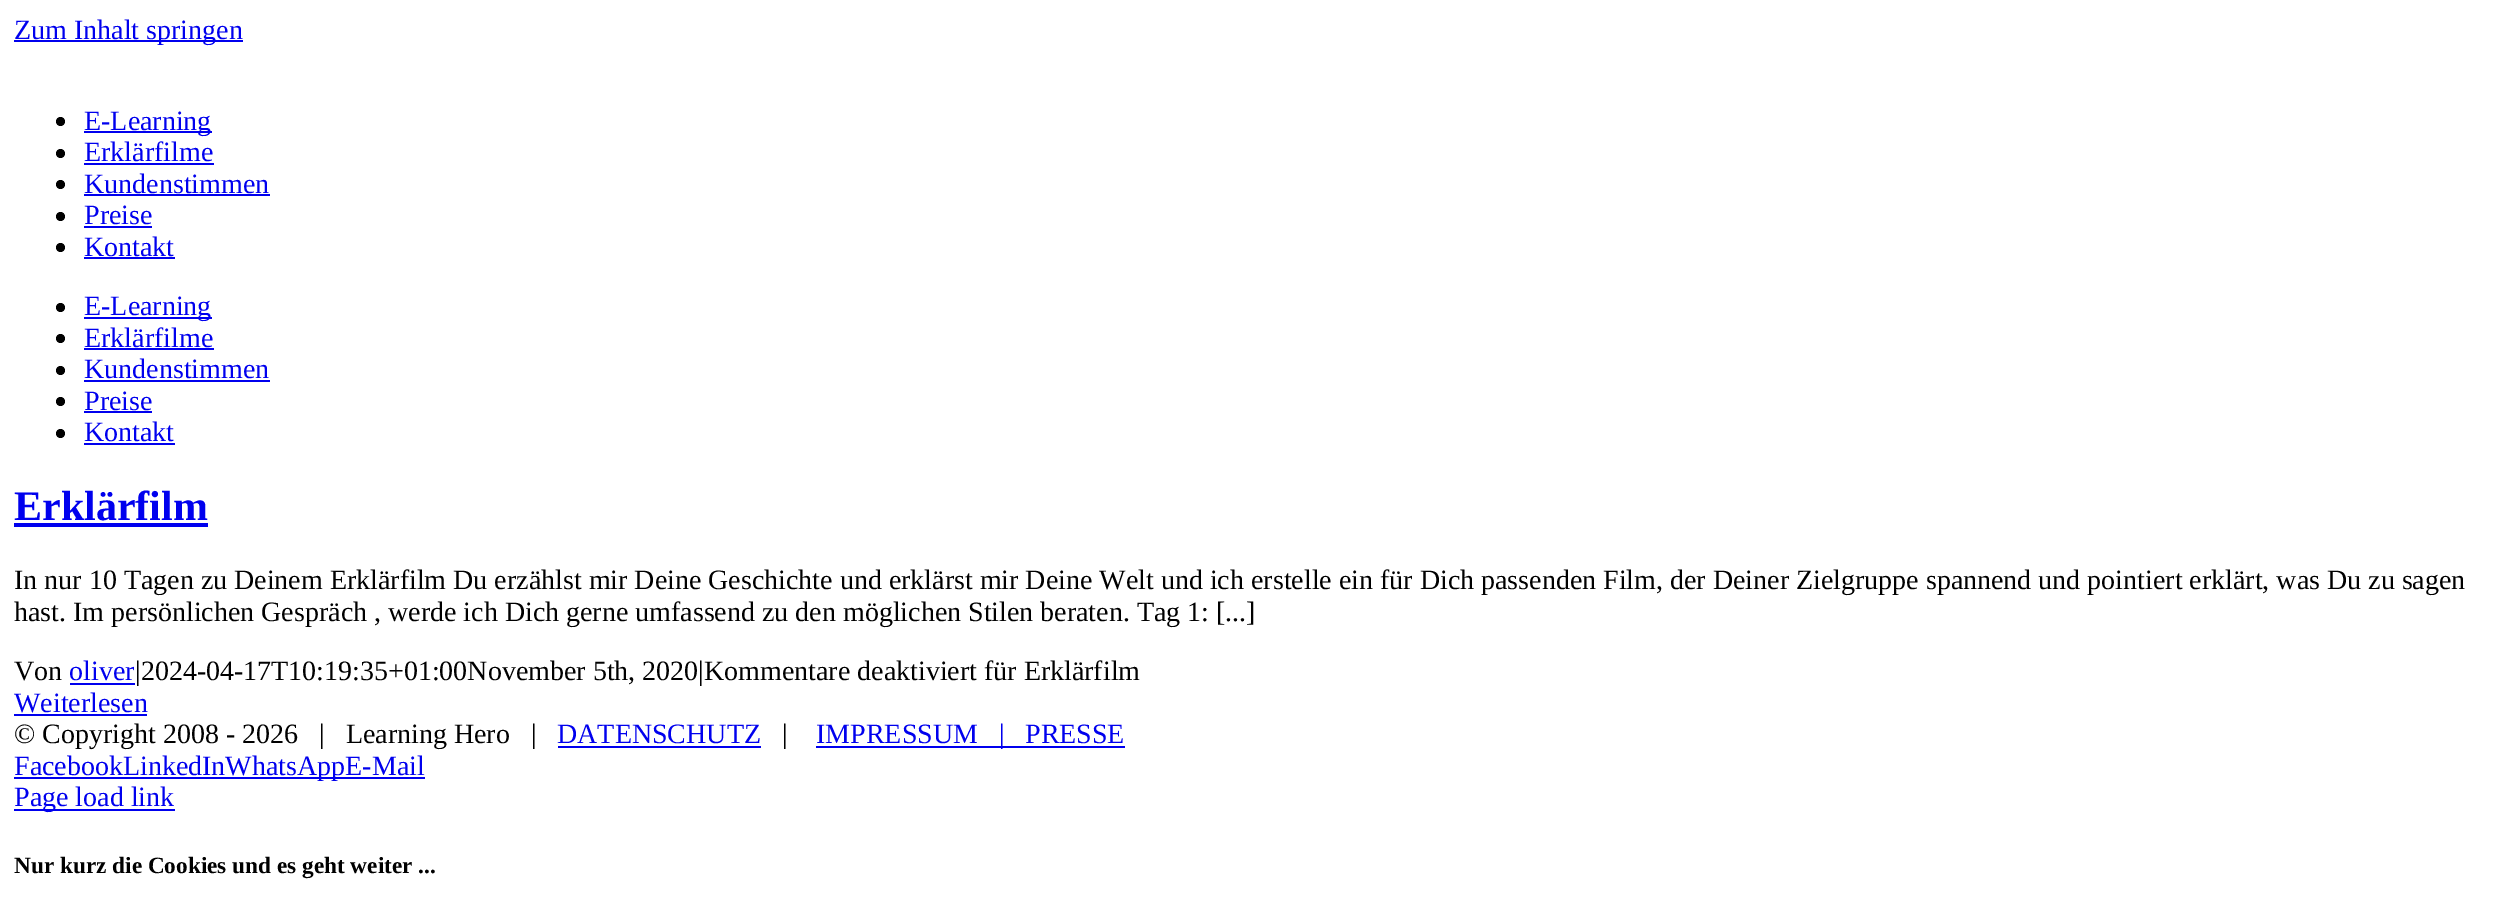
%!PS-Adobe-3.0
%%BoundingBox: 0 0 2512 921
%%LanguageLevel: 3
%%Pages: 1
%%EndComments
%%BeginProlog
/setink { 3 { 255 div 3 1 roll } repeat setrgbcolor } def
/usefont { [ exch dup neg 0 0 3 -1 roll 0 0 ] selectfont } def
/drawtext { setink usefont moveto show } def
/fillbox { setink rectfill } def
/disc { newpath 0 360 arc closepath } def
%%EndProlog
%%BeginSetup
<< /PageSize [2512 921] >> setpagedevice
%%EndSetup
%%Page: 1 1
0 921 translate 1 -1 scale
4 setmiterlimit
0 0 2512 921 255 255 255 fillbox
14 40 229 2 0 0 238 fillbox
(Zum Inhalt springen) 14 39 /LiberationSerif-Regular 28 0 0 238 drawtext
0 0 0 setink
60.5 121.5 4.5 disc fill
84 131 128 2 0 0 238 fillbox
(E-Learning) 84 130 /LiberationSerif-Regular 28 0 0 238 drawtext
0 0 0 setink
60.5 153.5 4.5 disc fill
(Erklärfilme) 84 161 /LiberationSerif-Regular 28 0 0 238 drawtext
84 163 130 2 0 0 238 fillbox
0 0 0 setink
60.5 184.5 4.5 disc fill
(Kundenstimmen) 84 193 /LiberationSerif-Regular 28 0 0 238 drawtext
84 194 186 2 0 0 238 fillbox
0 0 0 setink
60.5 216.5 4.5 disc fill
(Preise) 84 224 /LiberationSerif-Regular 28 0 0 238 drawtext
84 226 68 2 0 0 238 fillbox
0 0 0 setink
60.5 247.5 4.5 disc fill
(Kontakt) 84 256 /LiberationSerif-Regular 28 0 0 238 drawtext
84 257 91 2 0 0 238 fillbox
0 0 0 setink
60.5 307.5 4.5 disc fill
84 317 128 2 0 0 238 fillbox
(E-Learning) 84 315 /LiberationSerif-Regular 28 0 0 238 drawtext
0 0 0 setink
60.5 338.5 4.5 disc fill
(Erklärfilme) 84 347 /LiberationSerif-Regular 28 0 0 238 drawtext
84 348 130 2 0 0 238 fillbox
0 0 0 setink
60.5 370.5 4.5 disc fill
(Kundenstimmen) 84 378 /LiberationSerif-Regular 28 0 0 238 drawtext
84 380 186 2 0 0 238 fillbox
0 0 0 setink
60.5 401.5 4.5 disc fill
(Preise) 84 410 /LiberationSerif-Regular 28 0 0 238 drawtext
84 411 68 2 0 0 238 fillbox
0 0 0 setink
60.5 433.5 4.5 disc fill
(Kontakt) 84 441 /LiberationSerif-Regular 28 0 0 238 drawtext
84 443 91 2 0 0 238 fillbox
(Erklärfilm) 14 520 /LiberationSerif-Bold 42 0 0 238 drawtext
14 523 194 4 0 0 238 fillbox
(In nur 10 Tagen zu Deinem Erklärfilm Du erzählst mir Deine Geschichte und erklärst mir Deine Welt und ich erstelle ein für Dich passenden Film, der Deiner Zielgruppe spannend und pointiert erklärt, was Du zu sagen) 14 589 /LiberationSerif-Regular 28 0 0 0 drawtext
(hast. Im persönlichen Gespräch , werde ich Dich gerne umfassend zu den möglichen Stilen beraten. Tag 1: [...]) 14 621 /LiberationSerif-Regular 28 0 0 0 drawtext
(Von) 14 680 /LiberationSerif-Regular 28 0 0 0 drawtext
(oliver) 69 680 /LiberationSerif-Regular 28 0 0 238 drawtext
70 683 65 2 0 0 238 fillbox
(|2024-04-17T10:19:35+01:00November 5th, 2020|Kommentare deaktiviert für Erklärfilm) 135 680 /LiberationSerif-Regular 28 0 0 0 drawtext
(Weiterlesen) 14 712 /LiberationSerif-Regular 28 0 0 238 drawtext
14 714 133 2 0 0 238 fillbox
(© Copyright 2008 - 2026   |   Learning Hero   |) 14 743 /LiberationSerif-Regular 28 0 0 0 drawtext
(DATENSCHUTZ) 557 743 /LiberationSerif-Regular 28 0 0 238 drawtext
558 746 203 2 0 0 238 fillbox
(|) 782 743 /LiberationSerif-Regular 28 0 0 0 drawtext
816 746 309 2 0 0 238 fillbox
(IMPRESSUM   |) 816 743 /LiberationSerif-Regular 28 0 0 238 drawtext
(PRESSE) 1025 743 /LiberationSerif-Regular 28 0 0 238 drawtext
14 777 411 2 0 0 238 fillbox
(FacebookLinkedInWhatsAppE-Mail) 14 775 /LiberationSerif-Regular 28 0 0 238 drawtext
14 809 161 2 0 0 238 fillbox
(Page load link) 14 806 /LiberationSerif-Regular 28 0 0 238 drawtext
(Nur kurz die Cookies und es geht weiter ...) 14 873 /LiberationSerif-Bold 23.25 0 0 0 drawtext
showpage
%%EOF
